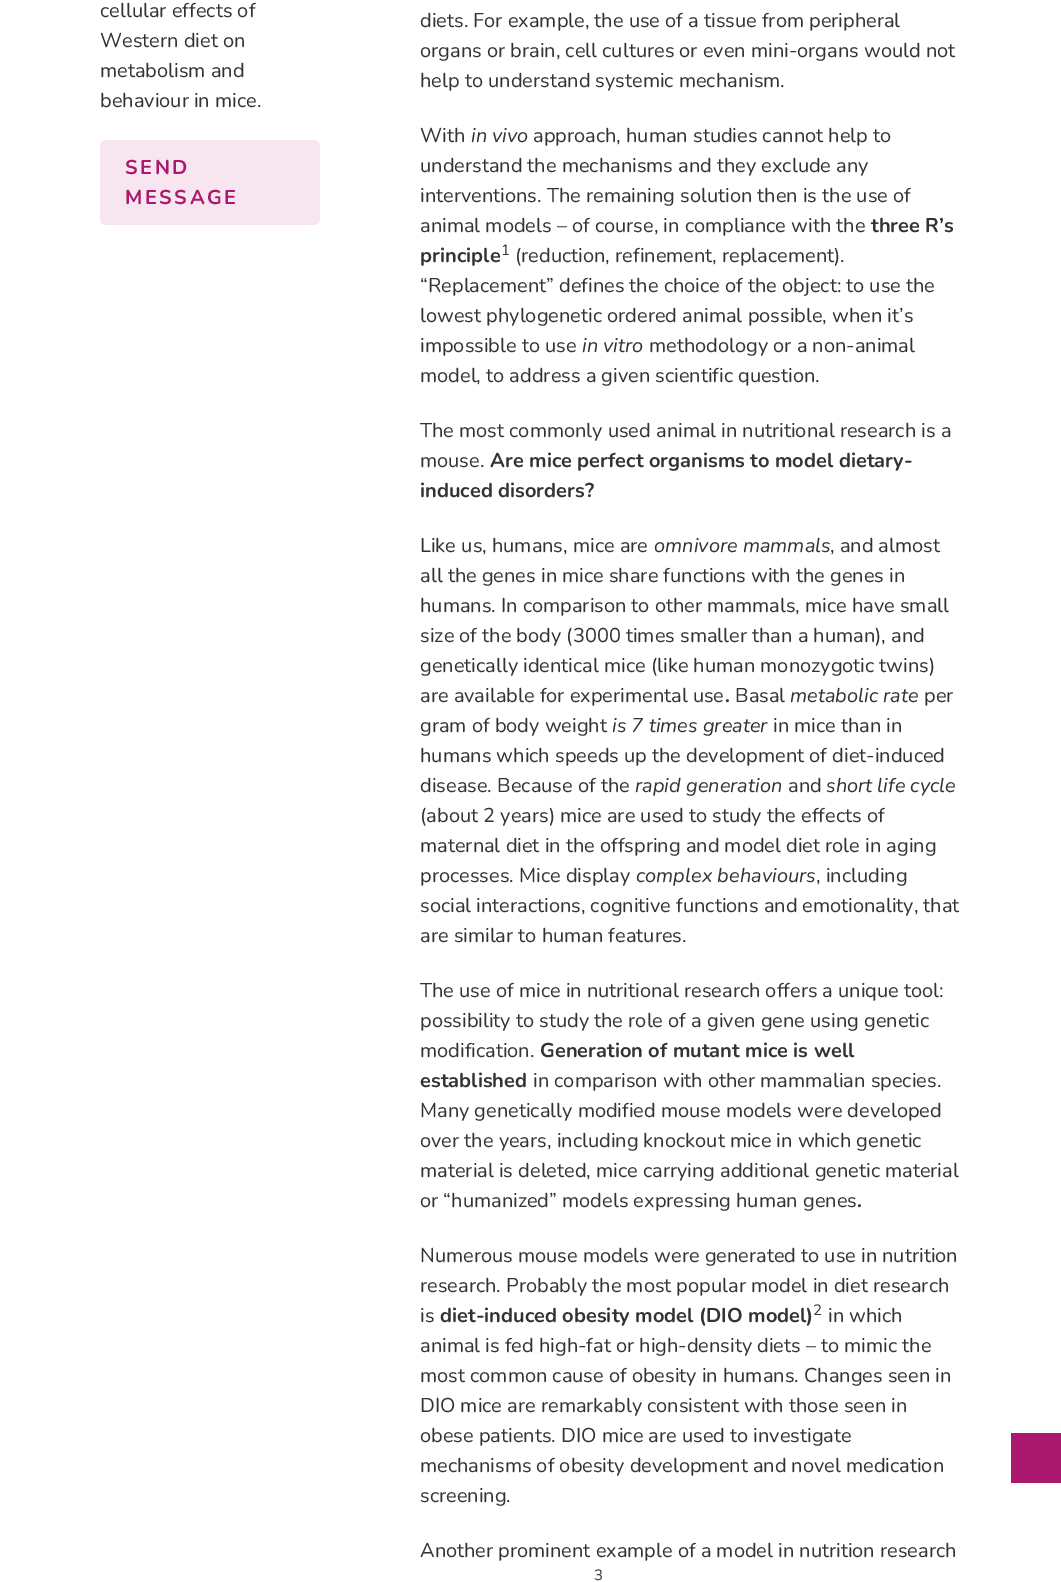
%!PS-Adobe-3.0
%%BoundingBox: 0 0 1061 1582
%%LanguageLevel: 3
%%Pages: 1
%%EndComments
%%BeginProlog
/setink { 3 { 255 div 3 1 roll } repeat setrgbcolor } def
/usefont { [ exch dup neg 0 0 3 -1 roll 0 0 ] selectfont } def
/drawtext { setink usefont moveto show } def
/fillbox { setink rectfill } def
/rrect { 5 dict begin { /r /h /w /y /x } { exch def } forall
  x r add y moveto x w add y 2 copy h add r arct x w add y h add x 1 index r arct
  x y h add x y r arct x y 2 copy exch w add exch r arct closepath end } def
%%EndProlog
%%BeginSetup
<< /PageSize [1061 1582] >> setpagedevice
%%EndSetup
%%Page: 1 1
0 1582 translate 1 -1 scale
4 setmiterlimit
0 0 1061 1582 255 255 255 fillbox
(cellular effects of) 100 17 /Nunito-Regular 20 51 51 51 drawtext
(Western diet on) 100 47 /Nunito-Regular 20 51 51 51 drawtext
(metabolism and) 100 77 /Nunito-Regular 20 51 51 51 drawtext
(behaviour in mice.) 100 107 /Nunito-Regular 20 51 51 51 drawtext
247 229 240 setink
100 140 220 85 6 rrect fill
/Nunito-Bold 20 usefont
170 25 109 setink
125 174 moveto 2.5 0 (SEND) ashow
125 204 moveto 2.5 0 (MESSAGE) ashow
(diets. For example, the use of a tissue from peripheral) 420 27 /Nunito-Regular 20 51 51 51 drawtext
(organs or brain, cell cultures or even mini-organs would not) 420 57 /Nunito-Regular 20 51 51 51 drawtext
(help to understand systemic mechanism.) 420 87 /Nunito-Regular 20 51 51 51 drawtext
(With) 420 142 /Nunito-Regular 20 51 51 51 drawtext
(in vivo) 471 142 /Nunito-Italic 20 51 51 51 drawtext
(approach, human studies cannot help to) 533 142 /Nunito-Regular 20 51 51 51 drawtext
(understand the mechanisms and they exclude any) 420 172 /Nunito-Regular 20 51 51 51 drawtext
(interventions. The remaining solution then is the use of) 420 202 /Nunito-Regular 20 51 51 51 drawtext
(animal models – of course, in compliance with the) 420 232 /Nunito-Regular 20 51 51 51 drawtext
(three R’s) 871 232 /Nunito-Bold 20 51 51 51 drawtext
(principle) 420 262 /Nunito-Bold 20 51 51 51 drawtext
(1) 501 255 /Nunito-Regular 15 51 51 51 drawtext
(\(reduction, refinement, replacement\).) 515 262 /Nunito-Regular 20 51 51 51 drawtext
(“Replacement” defines the choice of the object: to use the) 420 292 /Nunito-Regular 20 51 51 51 drawtext
(lowest phylogenetic ordered animal possible, when it’s) 420 322 /Nunito-Regular 20 51 51 51 drawtext
(impossible to use) 420 352 /Nunito-Regular 20 51 51 51 drawtext
(in vitro) 582 352 /Nunito-Italic 20 51 51 51 drawtext
(methodology or a non-animal) 649 352 /Nunito-Regular 20 51 51 51 drawtext
(model, to address a given scientific question.) 420 382 /Nunito-Regular 20 51 51 51 drawtext
(The most commonly used animal in nutritional research is a) 420 437 /Nunito-Regular 20 51 51 51 drawtext
(mouse.) 420 467 /Nunito-Regular 20 51 51 51 drawtext
(Are mice perfect organisms to model dietary-) 490 467 /Nunito-Bold 20 51 51 51 drawtext
(induced disorders?) 420 497 /Nunito-Bold 20 51 51 51 drawtext
(Like us, humans, mice are) 420 552 /Nunito-Regular 20 51 51 51 drawtext
(omnivore mammals) 654 552 /Nunito-Italic 20 51 51 51 drawtext
(, and almost) 830 552 /Nunito-Regular 20 51 51 51 drawtext
(all the genes in mice share functions with the genes in) 420 582 /Nunito-Regular 20 51 51 51 drawtext
(humans. In comparison to other mammals, mice have small) 420 612 /Nunito-Regular 20 51 51 51 drawtext
(size of the body \(3000 times smaller than a human\), and) 420 642 /Nunito-Regular 20 51 51 51 drawtext
(genetically identical mice \(like human monozygotic twins\)) 420 672 /Nunito-Regular 20 51 51 51 drawtext
(are available for experimental use) 420 702 /Nunito-Regular 20 51 51 51 drawtext
(.) 725 702 /Nunito-Bold 20 51 51 51 drawtext
(Basal) 735 702 /Nunito-Regular 20 51 51 51 drawtext
(metabolic rate) 790 702 /Nunito-Italic 20 51 51 51 drawtext
(per) 924 702 /Nunito-Regular 20 51 51 51 drawtext
(gram of body weight) 420 732 /Nunito-Regular 20 51 51 51 drawtext
(is 7 times greater) 612 732 /Nunito-Italic 20 51 51 51 drawtext
(in mice than in) 773 732 /Nunito-Regular 20 51 51 51 drawtext
(humans which speeds up the development of diet-induced) 420 762 /Nunito-Regular 20 51 51 51 drawtext
(disease. Because of the) 420 792 /Nunito-Regular 20 51 51 51 drawtext
(rapid generation) 635 792 /Nunito-Italic 20 51 51 51 drawtext
(and) 788 792 /Nunito-Regular 20 51 51 51 drawtext
(short life cycle) 826 792 /Nunito-Italic 20 51 51 51 drawtext
(\(about 2 years\) mice are used to study the effects of) 420 822 /Nunito-Regular 20 51 51 51 drawtext
(maternal diet in the offspring and model diet role in aging) 420 852 /Nunito-Regular 20 51 51 51 drawtext
(processes. Mice display) 420 882 /Nunito-Regular 20 51 51 51 drawtext
(complex behaviours) 636 882 /Nunito-Italic 20 51 51 51 drawtext
(, including) 816 882 /Nunito-Regular 20 51 51 51 drawtext
(social interactions, cognitive functions and emotionality, that) 420 912 /Nunito-Regular 20 51 51 51 drawtext
(are similar to human features.) 420 942 /Nunito-Regular 20 51 51 51 drawtext
(The use of mice in nutritional research offers a unique tool:) 420 997 /Nunito-Regular 20 51 51 51 drawtext
(possibility to study the role of a given gene using genetic) 420 1027 /Nunito-Regular 20 51 51 51 drawtext
(modification.) 420 1057 /Nunito-Regular 20 51 51 51 drawtext
(Generation of mutant mice is well) 540 1057 /Nunito-Bold 20 51 51 51 drawtext
(established) 420 1087 /Nunito-Bold 20 51 51 51 drawtext
(in comparison with other mammalian species.) 533 1087 /Nunito-Regular 20 51 51 51 drawtext
(Many genetically modified mouse models were developed) 420 1117 /Nunito-Regular 20 51 51 51 drawtext
(over the years, including knockout mice in which genetic) 420 1147 /Nunito-Regular 20 51 51 51 drawtext
(material is deleted, mice carrying additional genetic material) 420 1177 /Nunito-Regular 20 51 51 51 drawtext
(or “humanized” models expressing human genes) 420 1207 /Nunito-Regular 20 51 51 51 drawtext
(.) 857 1207 /Nunito-Bold 20 51 51 51 drawtext
(Numerous mouse models were generated to use in nutrition) 420 1262 /Nunito-Regular 20 51 51 51 drawtext
(research. Probably the most popular model in diet research) 420 1292 /Nunito-Regular 20 51 51 51 drawtext
(is) 420 1322 /Nunito-Regular 20 51 51 51 drawtext
(diet-induced obesity model \(DIO model\)) 440 1322 /Nunito-Bold 20 51 51 51 drawtext
(2) 813 1315 /Nunito-Regular 15 51 51 51 drawtext
(in which) 828 1322 /Nunito-Regular 20 51 51 51 drawtext
(animal is fed high-fat or high-density diets – to mimic the) 420 1352 /Nunito-Regular 20 51 51 51 drawtext
(most common cause of obesity in humans. Changes seen in) 420 1382 /Nunito-Regular 20 51 51 51 drawtext
(DIO mice are remarkably consistent with those seen in) 420 1412 /Nunito-Regular 20 51 51 51 drawtext
(obese patients. DIO mice are used to investigate) 420 1442 /Nunito-Regular 20 51 51 51 drawtext
(mechanisms of obesity development and novel medication) 420 1472 /Nunito-Regular 20 51 51 51 drawtext
(screening.) 420 1502 /Nunito-Regular 20 51 51 51 drawtext
(Another prominent example of a model in nutrition research) 420 1557 /Nunito-Regular 20 51 51 51 drawtext
(3) 594 1580 /Nunito-Regular 15 51 51 51 drawtext
1011 1433 50 50 170 25 109 fillbox
showpage
%%EOF
